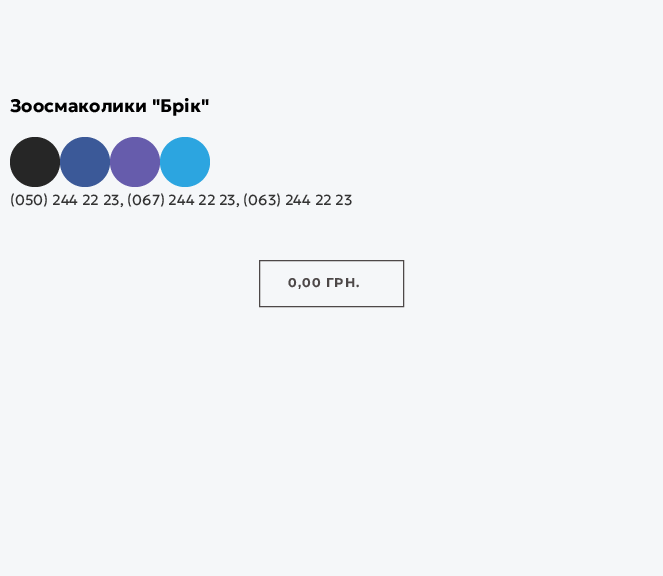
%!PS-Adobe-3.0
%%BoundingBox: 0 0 663 576
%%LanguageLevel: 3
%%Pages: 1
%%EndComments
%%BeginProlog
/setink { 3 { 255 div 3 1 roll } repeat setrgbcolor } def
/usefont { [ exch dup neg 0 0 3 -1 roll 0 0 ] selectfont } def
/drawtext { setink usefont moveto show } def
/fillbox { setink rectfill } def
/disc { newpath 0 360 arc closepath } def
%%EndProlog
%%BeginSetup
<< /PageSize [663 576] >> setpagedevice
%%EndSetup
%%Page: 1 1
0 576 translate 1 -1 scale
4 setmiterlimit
0 0 663 576 245 247 249 fillbox
(Зоосмаколики "Брік") 10 112 /Geologica-Bold 18.25 0 0 0 drawtext
38 38 38 setink
35 162 25 disc fill
59 89 152 setink
85 162 25 disc fill
102 92 172 setink
135 162 25 disc fill
44 165 224 setink
185 162 25 disc fill
(\(050\) 244 22 23, \(067\) 244 22 23, \(063\) 244 22 23) 10 205 /Geologica-Regular 14.6 51 51 51 drawtext
77 72 72 setink
259.5 260.5 144 46 rectstroke
/Montserrat-Bold 12.75 usefont
288 287 moveto 1 0 (0,00 ГРН.) ashow
showpage
%%EOF
